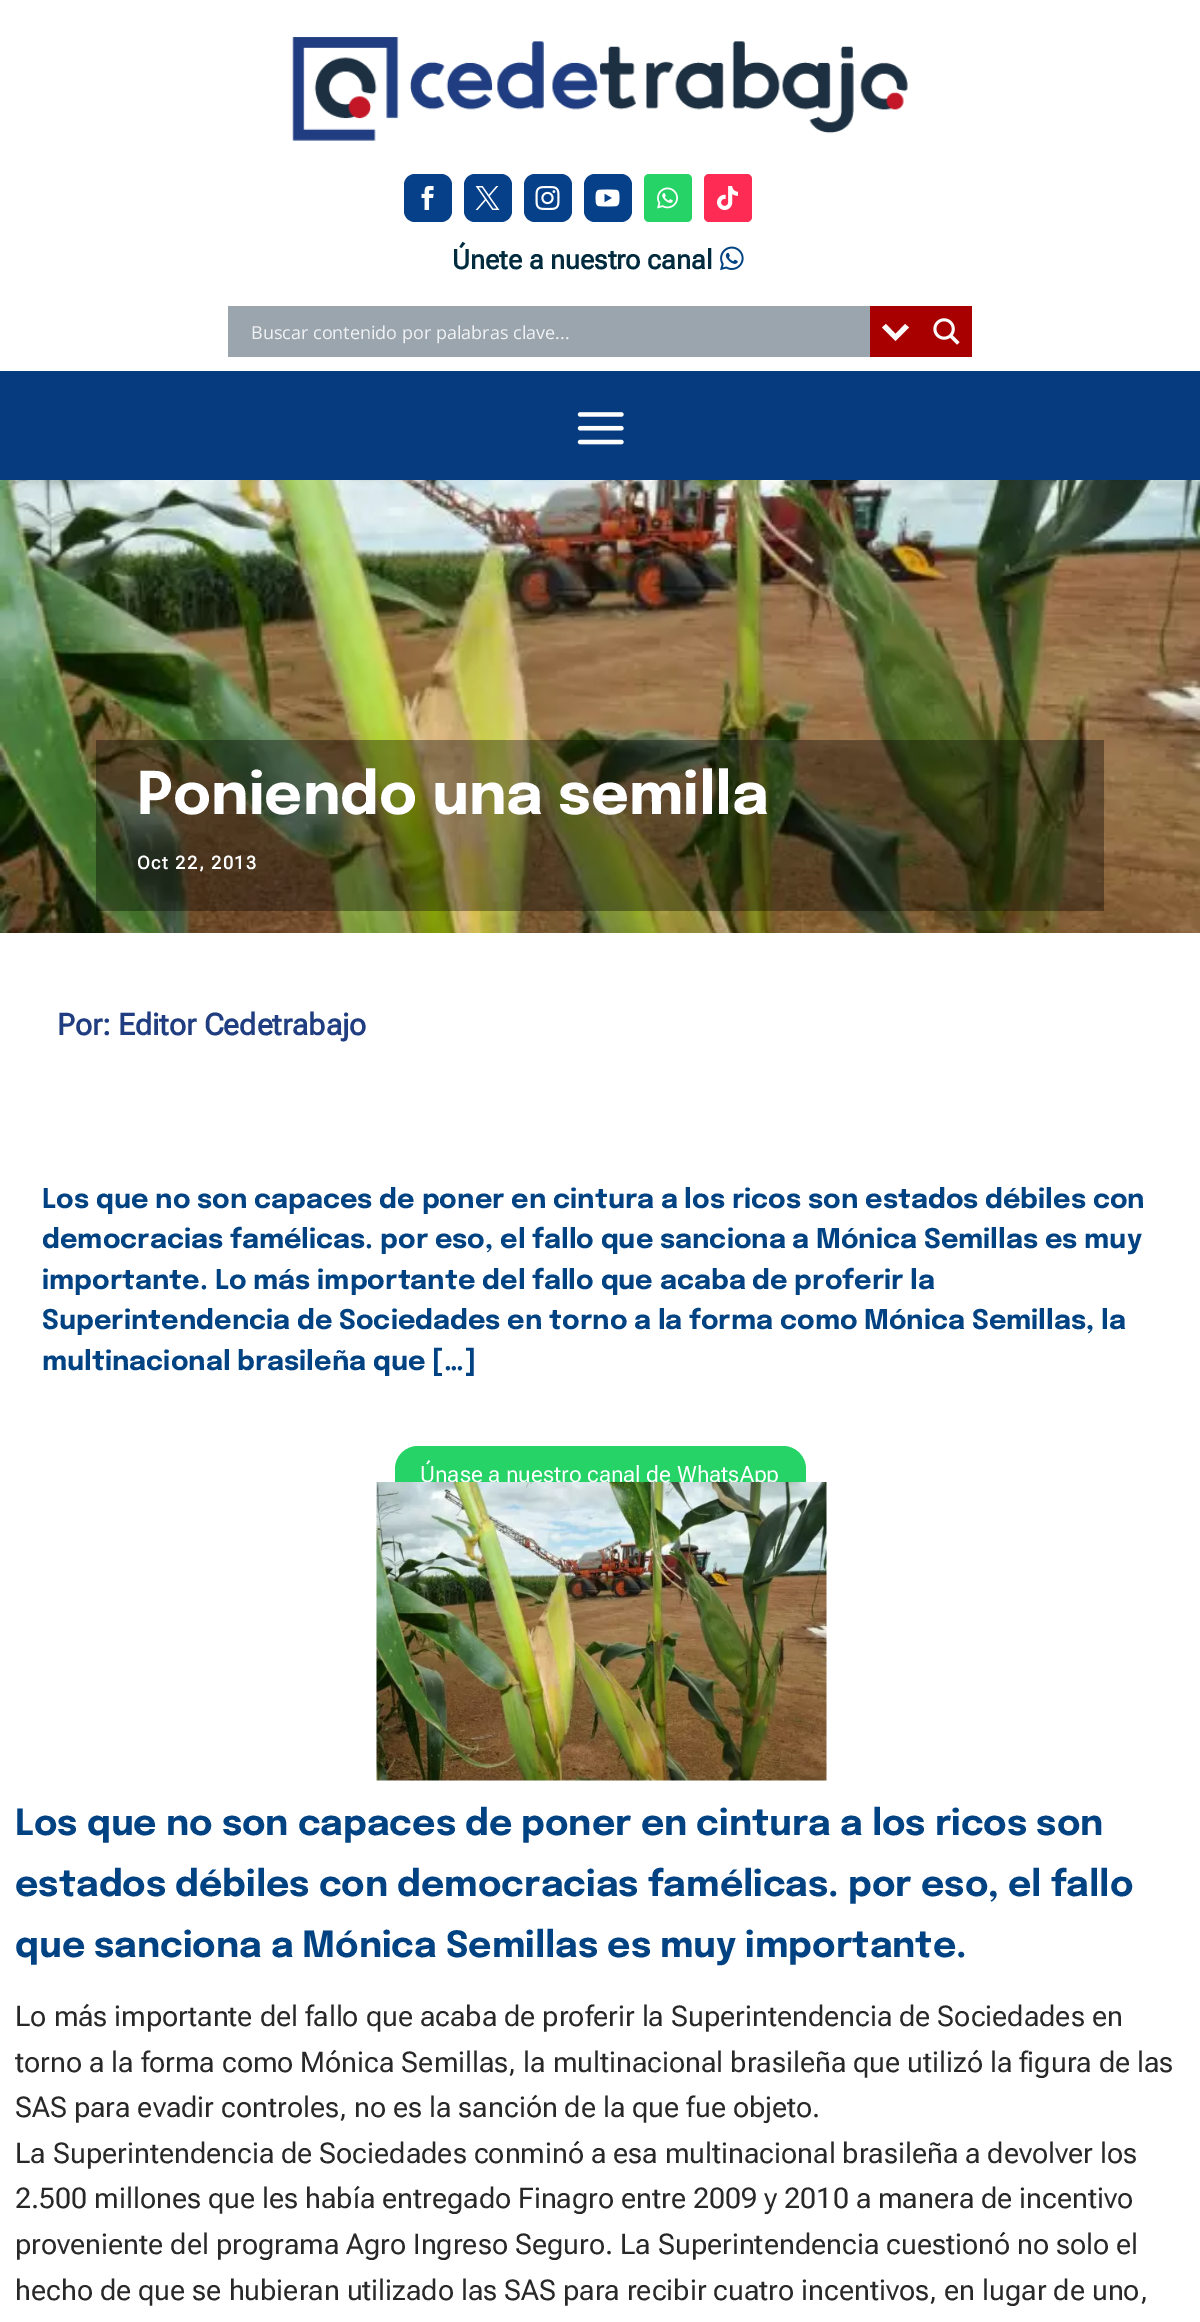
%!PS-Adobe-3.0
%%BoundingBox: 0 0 1200 2322
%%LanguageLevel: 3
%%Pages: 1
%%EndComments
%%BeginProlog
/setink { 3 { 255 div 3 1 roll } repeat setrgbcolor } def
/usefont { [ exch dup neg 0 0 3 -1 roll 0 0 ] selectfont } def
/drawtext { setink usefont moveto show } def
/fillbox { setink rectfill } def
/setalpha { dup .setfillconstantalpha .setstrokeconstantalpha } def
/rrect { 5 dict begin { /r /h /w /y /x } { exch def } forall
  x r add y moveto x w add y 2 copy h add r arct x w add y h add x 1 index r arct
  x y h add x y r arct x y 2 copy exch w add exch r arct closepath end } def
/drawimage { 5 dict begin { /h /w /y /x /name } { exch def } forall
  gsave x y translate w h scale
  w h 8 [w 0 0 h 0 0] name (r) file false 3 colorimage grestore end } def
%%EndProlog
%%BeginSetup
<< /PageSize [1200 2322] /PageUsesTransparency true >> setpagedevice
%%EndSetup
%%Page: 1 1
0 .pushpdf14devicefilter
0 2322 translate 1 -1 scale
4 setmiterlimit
0 0 1200 2322 255 255 255 fillbox
(assets/img1.rgb) 292 37 616 104 drawimage
5 64 137 setink
404 174 48 48 11 rrect fill
(assets/img2.rgb) 421 186 13 24 drawimage
464 174 48 48 11 rrect fill
(assets/img3.rgb) 475 186 25 24 drawimage
524 174 48 48 11 rrect fill
(assets/img4.rgb) 535 186 25 24 drawimage
584 174 48 48 11 rrect fill
(assets/img5.rgb) 595 189 25 18 drawimage
37 211 102 setink
644 174 48 48 5 rrect fill
(assets/img6.rgb) 657 187 21 22 drawimage
254 44 85 setink
704 174 48 48 5 rrect fill
(assets/img7.rgb) 717 186 21 24 drawimage
(Únete a nuestro canal) 452 269 /RobotoFlex-Bold 27 0 43 62 drawtext
(assets/img8.rgb) 720 246 24 25 drawimage
228 306 642 51 154 165 174 fillbox
870 306 102 51 168 0 0 fillbox
251 251 251 setink
905 324 moveto 909 327.5 lineto 895.5 341 lineto 882 327.5 lineto 886 324 lineto 895.5 334 lineto closepath fill
(Buscar contenido por palabras clave...) 251 339 /OpenSans-Regular 18 240 242 243 drawtext
(assets/img9.rgb) 933 318 27 27 drawimage
0 371 1200 109 6 60 127 fillbox
(assets/img10.rgb) 577 412 47 33 drawimage
(assets/img11.rgb) 0 480 1200 453 drawimage
0.36 setalpha
96 740 1008 171 0 0 0 fillbox
1 setalpha
(Poniendo una semilla) 137 814 /Epilogue-Bold 58.5 255 255 255 drawtext
/RobotoFlex-Bold 18 usefont
137 869 moveto 1.5 0 (Oct 22, 2013) ashow
(Por: Editor Cedetrabajo) 57 1035 /RobotoFlex-Bold 30 31 61 128 drawtext
(Los que no son capaces de poner en cintura a los ricos son estados débiles con) 42 1208 /Epilogue-Bold 27 0 66 130 drawtext
(democracias famélicas. por eso, el fallo que sanciona a Mónica Semillas es muy) 42 1248 /Epilogue-Bold 27 0 66 130 drawtext
(importante. Lo más importante del fallo que acaba de proferir la) 42 1289 /Epilogue-Bold 27 0 66 130 drawtext
(Superintendencia de Sociedades en torno a la forma como Mónica Semillas, la) 42 1329 /Epilogue-Bold 27 0 66 130 drawtext
(multinacional brasileña que […]) 42 1370 /Epilogue-Bold 27 0 66 130 drawtext
37 211 102 setink
395 1446 411 59 23 rrect fill
(Únase a nuestro canal de WhatsApp) 420 1482 /RobotoFlex-Regular 22.5 255 255 255 drawtext
(assets/img12.rgb) 376 1482 451 299 drawimage
(Los que no son capaces de poner en cintura a los ricos son) 15 1835 /Epilogue-Bold 36 0 66 130 drawtext
(estados débiles con democracias famélicas. por eso, el fallo) 15 1896 /Epilogue-Bold 36 0 66 130 drawtext
(que sanciona a Mónica Semillas es muy importante.) 15 1957 /Epilogue-Bold 36 0 66 130 drawtext
(Lo más importante del fallo que acaba de proferir la Superintendencia de Sociedades en) 15 2026 /RobotoFlex-Regular 28.5 40 40 40 drawtext
(torno a la forma como Mónica Semillas, la multinacional brasileña que utilizó la figura de las) 15 2072 /RobotoFlex-Regular 28.5 40 40 40 drawtext
(SAS para evadir controles, no es la sanción de la que fue objeto.) 15 2117 /RobotoFlex-Regular 28.5 40 40 40 drawtext
(La Superintendencia de Sociedades conminó a esa multinacional brasileña a devolver los) 15 2163 /RobotoFlex-Regular 28.5 40 40 40 drawtext
(2.500 millones que les había entregado Finagro entre 2009 y 2010 a manera de incentivo) 15 2208 /RobotoFlex-Regular 28.5 40 40 40 drawtext
(proveniente del programa Agro Ingreso Seguro. La Superintendencia cuestionó no solo el) 15 2254 /RobotoFlex-Regular 28.5 40 40 40 drawtext
(hecho de que se hubieran utilizado las SAS para recibir cuatro incentivos, en lugar de uno,) 15 2300 /RobotoFlex-Regular 28.5 40 40 40 drawtext
.poppdf14devicefilter showpage
%%EOF
